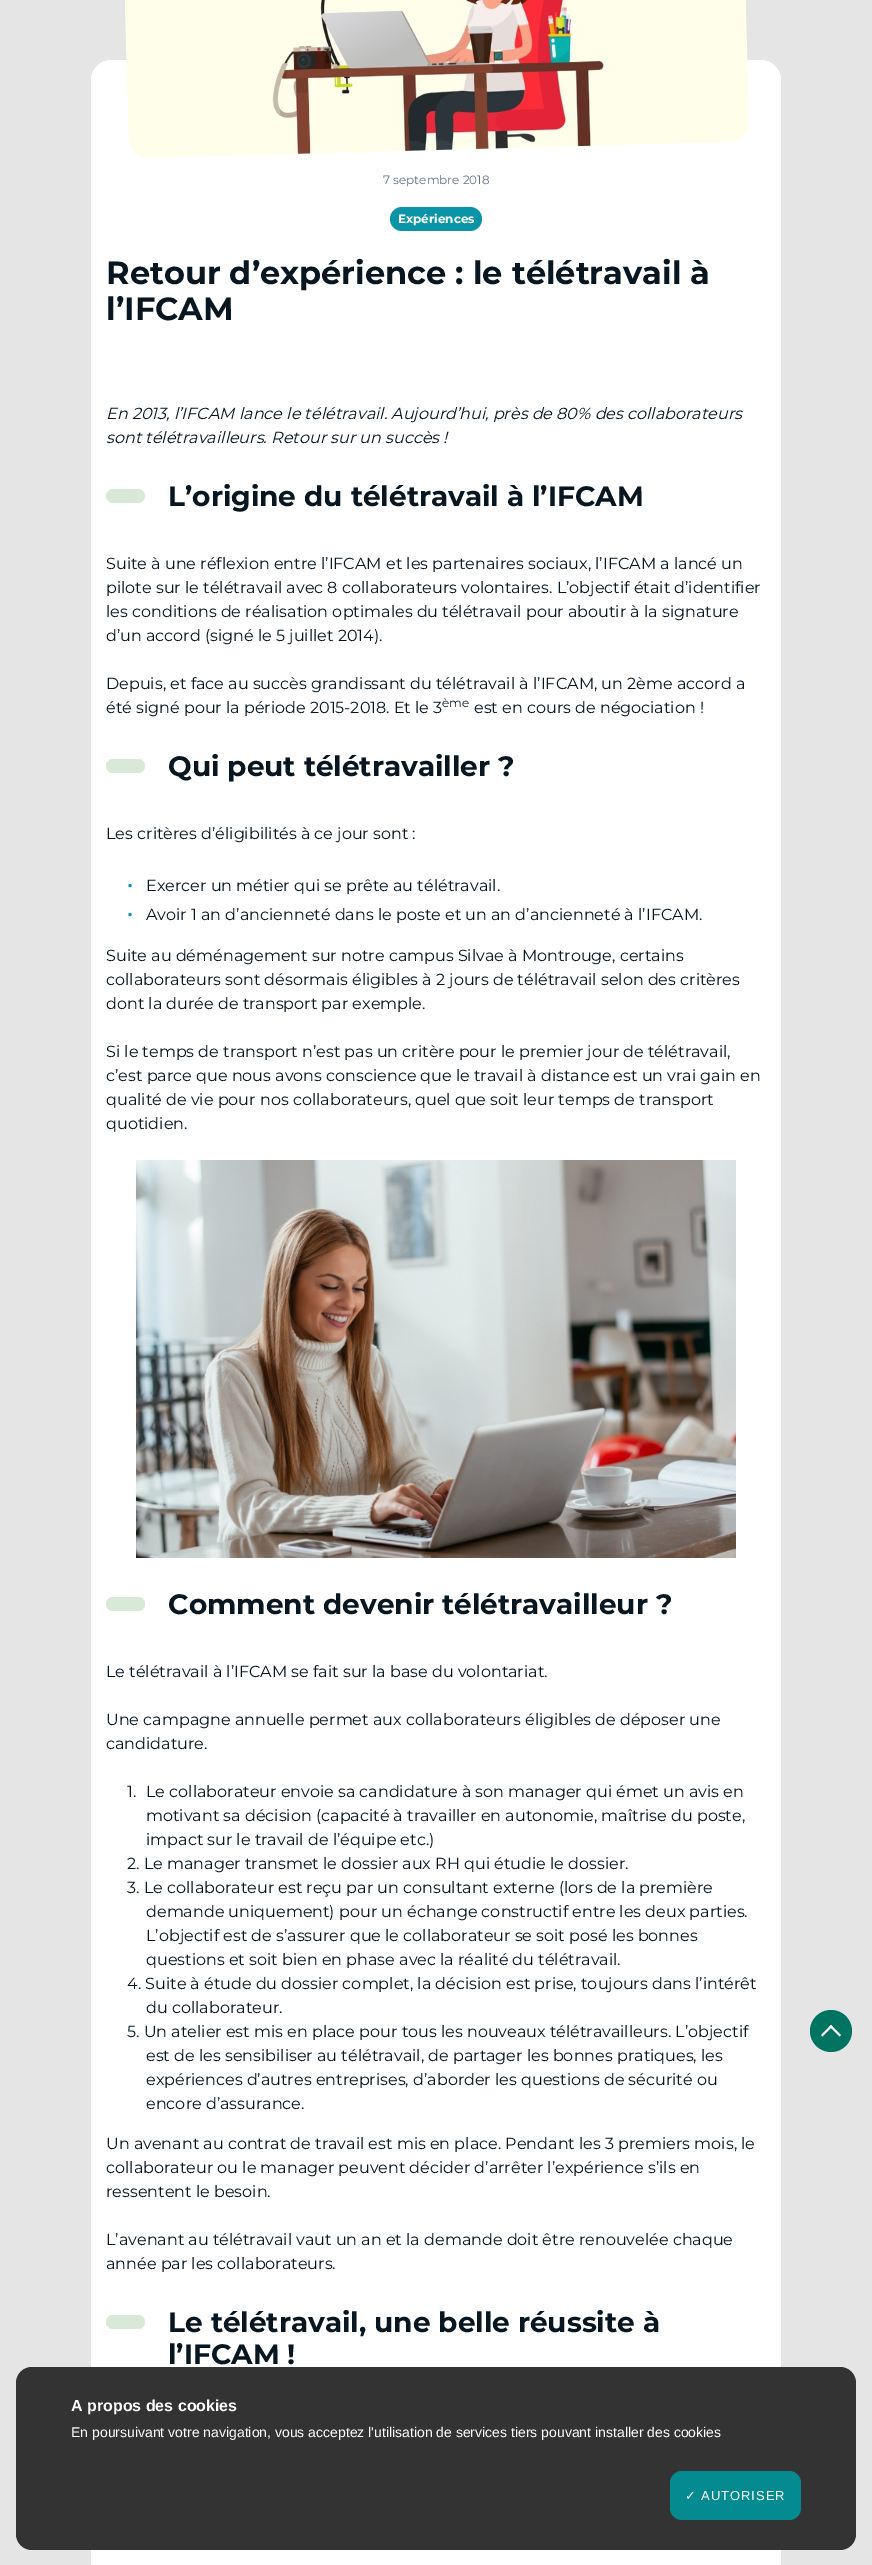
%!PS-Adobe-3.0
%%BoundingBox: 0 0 872 2565
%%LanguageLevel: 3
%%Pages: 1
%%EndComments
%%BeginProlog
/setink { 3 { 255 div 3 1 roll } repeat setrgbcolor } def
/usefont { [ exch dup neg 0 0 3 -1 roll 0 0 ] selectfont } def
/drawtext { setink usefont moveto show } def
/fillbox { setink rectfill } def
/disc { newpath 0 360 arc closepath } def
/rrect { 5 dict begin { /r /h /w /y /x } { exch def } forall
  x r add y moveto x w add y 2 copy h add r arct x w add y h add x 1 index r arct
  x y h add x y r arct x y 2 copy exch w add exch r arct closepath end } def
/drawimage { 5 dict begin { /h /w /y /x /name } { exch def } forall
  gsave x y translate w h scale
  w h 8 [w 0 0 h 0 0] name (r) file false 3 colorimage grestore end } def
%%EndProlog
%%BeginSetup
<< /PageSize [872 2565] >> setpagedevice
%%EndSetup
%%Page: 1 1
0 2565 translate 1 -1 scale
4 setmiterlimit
0 0 872 2565 229 229 229 fillbox
255 255 255 setink
91 60 690 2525 20 rrect fill
(assets/img1.rgb) 125 0 624 158 drawimage
(7 septembre 2018) 383 184 /Montserrat-Regular 12 102 110 138 drawtext
10 148 168 setink
390 207 92 24 12 rrect fill
(Expériences) 398 223 /Montserrat-Bold 12 255 255 255 drawtext
(Retour d’expérience : le télétravail à) 106 284 /Montserrat-Bold 32 7 22 33 drawtext
(l’IFCAM) 106 320 /Montserrat-Bold 32 7 22 33 drawtext
(En 2013, l’IFCAM lance le télétravail. Aujourd’hui, près de 80% des collaborateurs) 106 419 /Montserrat-Italic 16 7 22 33 drawtext
(sont télétravailleurs. Retour sur un succès !) 106 443 /Montserrat-Italic 16 7 22 33 drawtext
216 234 215 setink
106 489 39 14 7 rrect fill
(L’origine du télétravail à l’IFCAM) 168 506 /Montserrat-Bold 28 7 22 33 drawtext
(Suite à une réflexion entre l’IFCAM et les partenaires sociaux, l’IFCAM a lancé un) 106 569 /Montserrat-Regular 16 7 22 33 drawtext
(pilote sur le télétravail avec 8 collaborateurs volontaires. L’objectif était d’identifier) 106 593 /Montserrat-Regular 16 7 22 33 drawtext
(les conditions de réalisation optimales du télétravail pour aboutir à la signature) 106 617 /Montserrat-Regular 16 7 22 33 drawtext
(d’un accord \(signé le 5 juillet 2014\).) 106 641 /Montserrat-Regular 16 7 22 33 drawtext
(Depuis, et face au succès grandissant du télétravail à l’IFCAM, un 2ème accord a) 106 689 /Montserrat-Regular 16 7 22 33 drawtext
(été signé pour la période 2015-2018. Et le 3) 106 713 /Montserrat-Regular 16 7 22 33 drawtext
(ème) 442 707 /Montserrat-Regular 12 7 22 33 drawtext
(est en cours de négociation !) 474 713 /Montserrat-Regular 16 7 22 33 drawtext
216 234 215 setink
106 759 39 14 7 rrect fill
(Qui peut télétravailler ?) 168 776 /Montserrat-Bold 28 7 22 33 drawtext
(Les critères d’éligibilités à ce jour sont :) 106 839 /Montserrat-Regular 16 7 22 33 drawtext
(•) 127 891 /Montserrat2-Bold 19 10 148 168 drawtext
(Exercer un métier qui se prête au télétravail.) 146 891 /Montserrat-Regular 16 7 22 33 drawtext
(•) 127 920 /Montserrat2-Bold 19 10 148 168 drawtext
(Avoir 1 an d’ancienneté dans le poste et un an d’ancienneté à l’IFCAM.) 146 920 /Montserrat-Regular 16 7 22 33 drawtext
(Suite au déménagement sur notre campus Silvae à Montrouge, certains) 106 961 /Montserrat-Regular 16 7 22 33 drawtext
(collaborateurs sont désormais éligibles à 2 jours de télétravail selon des critères) 106 985 /Montserrat-Regular 16 7 22 33 drawtext
(dont la durée de transport par exemple.) 106 1009 /Montserrat-Regular 16 7 22 33 drawtext
(Si le temps de transport n’est pas un critère pour le premier jour de télétravail,) 106 1057 /Montserrat-Regular 16 7 22 33 drawtext
(c’est parce que nous avons conscience que le travail à distance est un vrai gain en) 106 1081 /Montserrat-Regular 16 7 22 33 drawtext
(qualité de vie pour nos collaborateurs, quel que soit leur temps de transport) 106 1105 /Montserrat-Regular 16 7 22 33 drawtext
(quotidien.) 106 1129 /Montserrat-Regular 16 7 22 33 drawtext
(assets/img2.rgb) 136 1160 600 398 drawimage
216 234 215 setink
106 1597 39 14 7 rrect fill
(Comment devenir télétravailleur ?) 168 1614 /Montserrat-Bold 28 7 22 33 drawtext
(Le télétravail à l’IFCAM se fait sur la base du volontariat.) 106 1677 /Montserrat-Regular 16 7 22 33 drawtext
(Une campagne annuelle permet aux collaborateurs éligibles de déposer une) 106 1725 /Montserrat-Regular 16 7 22 33 drawtext
(candidature.) 106 1749 /Montserrat-Regular 16 7 22 33 drawtext
(1.) 127 1797 /Montserrat-Regular 16 7 22 33 drawtext
(Le collaborateur envoie sa candidature à son manager qui émet un avis en) 146 1797 /Montserrat-Regular 16 7 22 33 drawtext
(motivant sa décision \(capacité à travailler en autonomie, maîtrise du poste,) 146 1821 /Montserrat-Regular 16 7 22 33 drawtext
(impact sur le travail de l’équipe etc.\)) 146 1845 /Montserrat-Regular 16 7 22 33 drawtext
(2. Le manager transmet le dossier aux RH qui étudie le dossier.) 127 1869 /Montserrat-Regular 16 7 22 33 drawtext
(3. Le collaborateur est reçu par un consultant externe \(lors de la première) 127 1893 /Montserrat-Regular 16 7 22 33 drawtext
(demande uniquement\) pour un échange constructif entre les deux parties.) 146 1917 /Montserrat-Regular 16 7 22 33 drawtext
(L’objectif est de s’assurer que le collaborateur se soit posé les bonnes) 146 1941 /Montserrat-Regular 16 7 22 33 drawtext
(questions et soit bien en phase avec la réalité du télétravail.) 146 1965 /Montserrat-Regular 16 7 22 33 drawtext
(4. Suite à étude du dossier complet, la décision est prise, toujours dans l’intérêt) 127 1989 /Montserrat-Regular 16 7 22 33 drawtext
(du collaborateur.) 146 2013 /Montserrat-Regular 16 7 22 33 drawtext
(5. Un atelier est mis en place pour tous les nouveaux télétravailleurs. L’objectif) 127 2037 /Montserrat-Regular 16 7 22 33 drawtext
(est de les sensibiliser au télétravail, de partager les bonnes pratiques, les) 146 2061 /Montserrat-Regular 16 7 22 33 drawtext
(expériences d’autres entreprises, d’aborder les questions de sécurité ou) 146 2085 /Montserrat-Regular 16 7 22 33 drawtext
(encore d’assurance.) 146 2109 /Montserrat-Regular 16 7 22 33 drawtext
(Un avenant au contrat de travail est mis en place. Pendant les 3 premiers mois, le) 106 2149 /Montserrat-Regular 16 7 22 33 drawtext
(collaborateur ou le manager peuvent décider d’arrêter l’expérience s’ils en) 106 2173 /Montserrat-Regular 16 7 22 33 drawtext
(ressentent le besoin.) 106 2197 /Montserrat-Regular 16 7 22 33 drawtext
(L’avenant au télétravail vaut un an et la demande doit être renouvelée chaque) 106 2245 /Montserrat-Regular 16 7 22 33 drawtext
(année par les collaborateurs.) 106 2269 /Montserrat-Regular 16 7 22 33 drawtext
216 234 215 setink
106 2315 39 14 7 rrect fill
(Le télétravail, une belle réussite à) 168 2332 /Montserrat-Bold 28 7 22 33 drawtext
(l’IFCAM !) 168 2364 /Montserrat-Bold 28 7 22 33 drawtext
0 116 97 setink
831 2031 21 disc fill
255 255 255 setink
821 2035 moveto 831 2025 lineto 832.5 2026.5 lineto 822.5 2036.5 lineto closepath fill
829.5 2026.5 moveto 831 2025 lineto 841 2035 lineto 839.5 2036.5 lineto closepath fill
51 51 51 setink
16 2367 840 183 16 rrect fill
(A propos des cookies) 71 2411 /LiberationSans-Bold 16 255 255 255 drawtext
(En poursuivant votre navigation, vous acceptez l'utilisation de services tiers pouvant installer des cookies) 71 2437 /LiberationSans-Regular 14 255 255 255 drawtext
4 139 145 setink
670 2471 131 49 12 rrect fill
/DejaVuSans-Regular 13 usefont
255 255 255 setink
685 2500 moveto 1 0 (✓) ashow
/LiberationSans-Regular 13 usefont
701 2500 moveto 1 0 (AUTORISER) ashow
showpage
%%EOF
